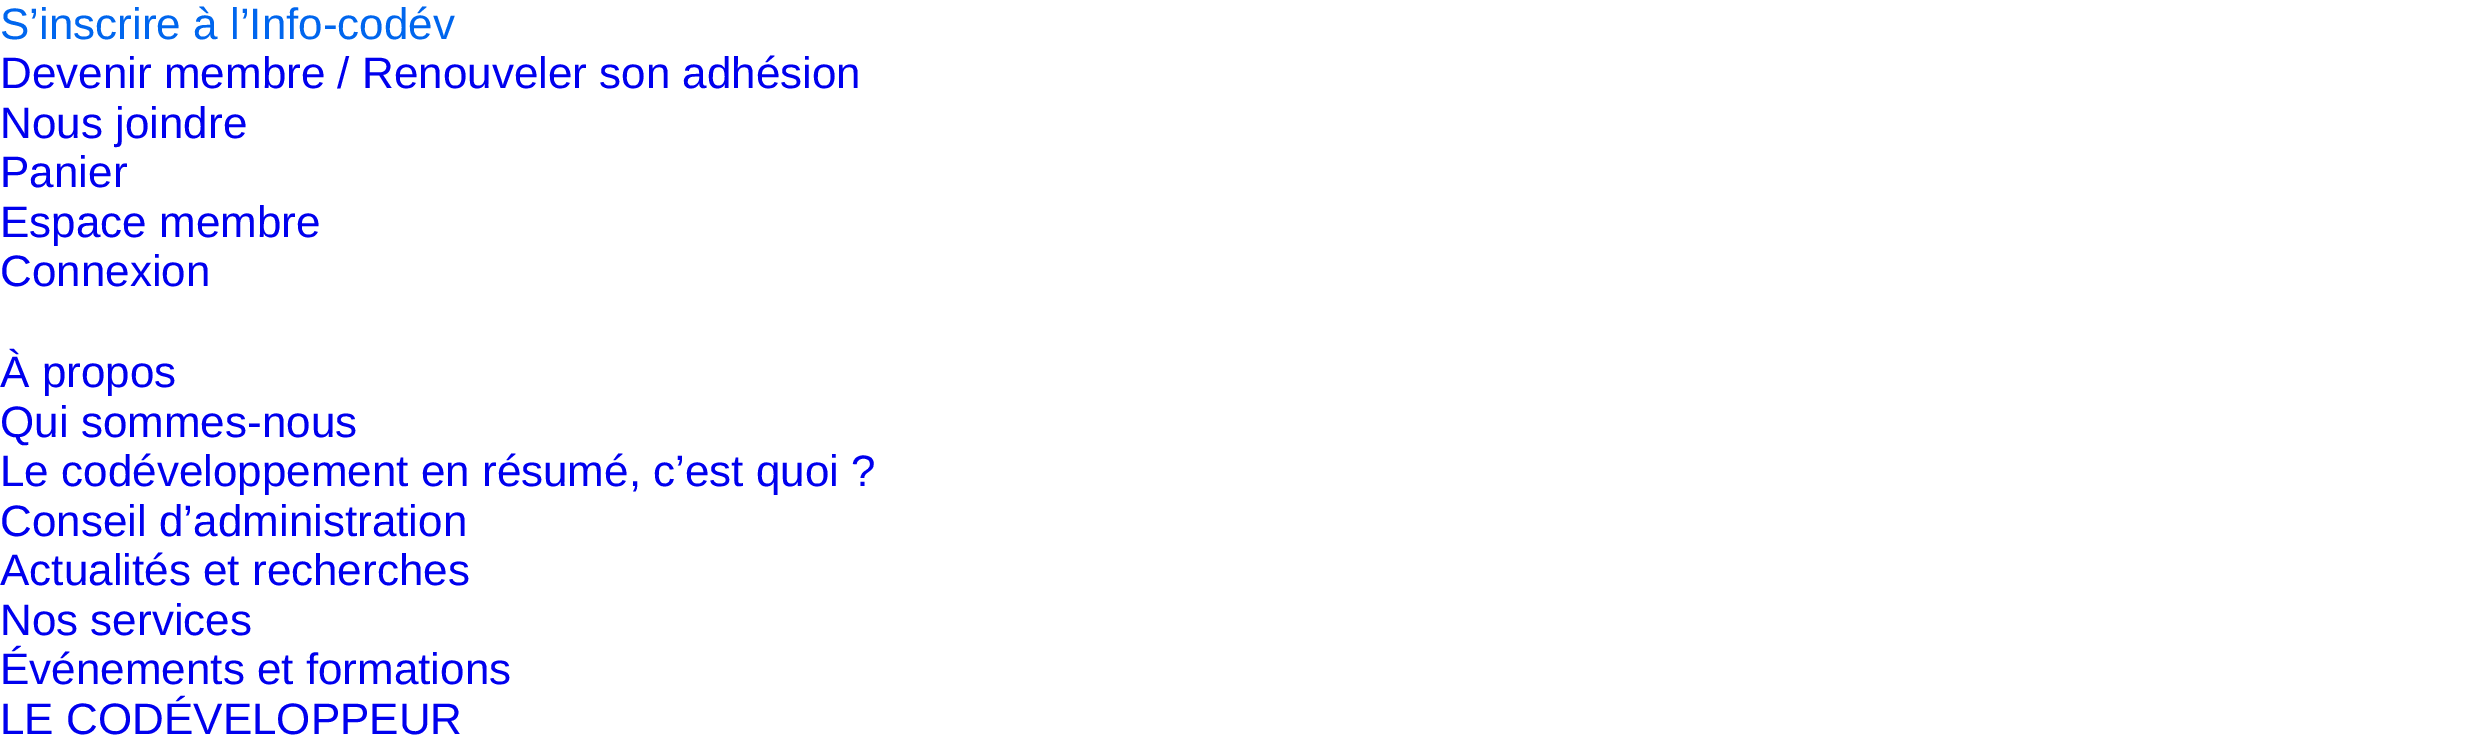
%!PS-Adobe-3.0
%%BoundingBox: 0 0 2470 741
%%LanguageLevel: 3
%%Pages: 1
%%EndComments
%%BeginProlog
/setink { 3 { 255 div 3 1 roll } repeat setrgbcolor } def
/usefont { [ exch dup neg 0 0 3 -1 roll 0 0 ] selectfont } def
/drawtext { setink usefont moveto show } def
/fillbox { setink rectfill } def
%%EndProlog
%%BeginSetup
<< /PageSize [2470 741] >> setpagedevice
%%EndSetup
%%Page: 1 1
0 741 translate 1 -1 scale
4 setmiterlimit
0 0 2470 741 255 255 255 fillbox
(S’inscrire à l’Info-codév) 0 39 /LiberationSans-Regular 44 0 102 238 drawtext
(Devenir membre / Renouveler son adhésion) 0 88 /LiberationSans-Regular 44 0 0 238 drawtext
(Nous joindre) 0 138 /LiberationSans-Regular 44 0 0 238 drawtext
(Panier) 0 187 /LiberationSans-Regular 44 0 0 238 drawtext
(Espace membre) 0 237 /LiberationSans-Regular 44 0 0 238 drawtext
(Connexion) 0 286 /LiberationSans-Regular 44 0 0 238 drawtext
(À propos) 0 387 /LiberationSans-Regular 44 0 0 238 drawtext
(Qui sommes-nous) 0 437 /LiberationSans-Regular 44 0 0 238 drawtext
(Le codéveloppement en résumé, c’est quoi ?) 0 486 /LiberationSans-Regular 44 0 0 238 drawtext
(Conseil d’administration) 0 536 /LiberationSans-Regular 44 0 0 238 drawtext
(Actualités et recherches) 0 585 /LiberationSans-Regular 44 0 0 238 drawtext
(Nos services) 0 635 /LiberationSans-Regular 44 0 0 238 drawtext
(Événements et formations) 0 684 /LiberationSans-Regular 44 0 0 238 drawtext
(LE CODÉVELOPPEUR) 0 734 /LiberationSans-Regular 44 0 0 238 drawtext
showpage
%%EOF
